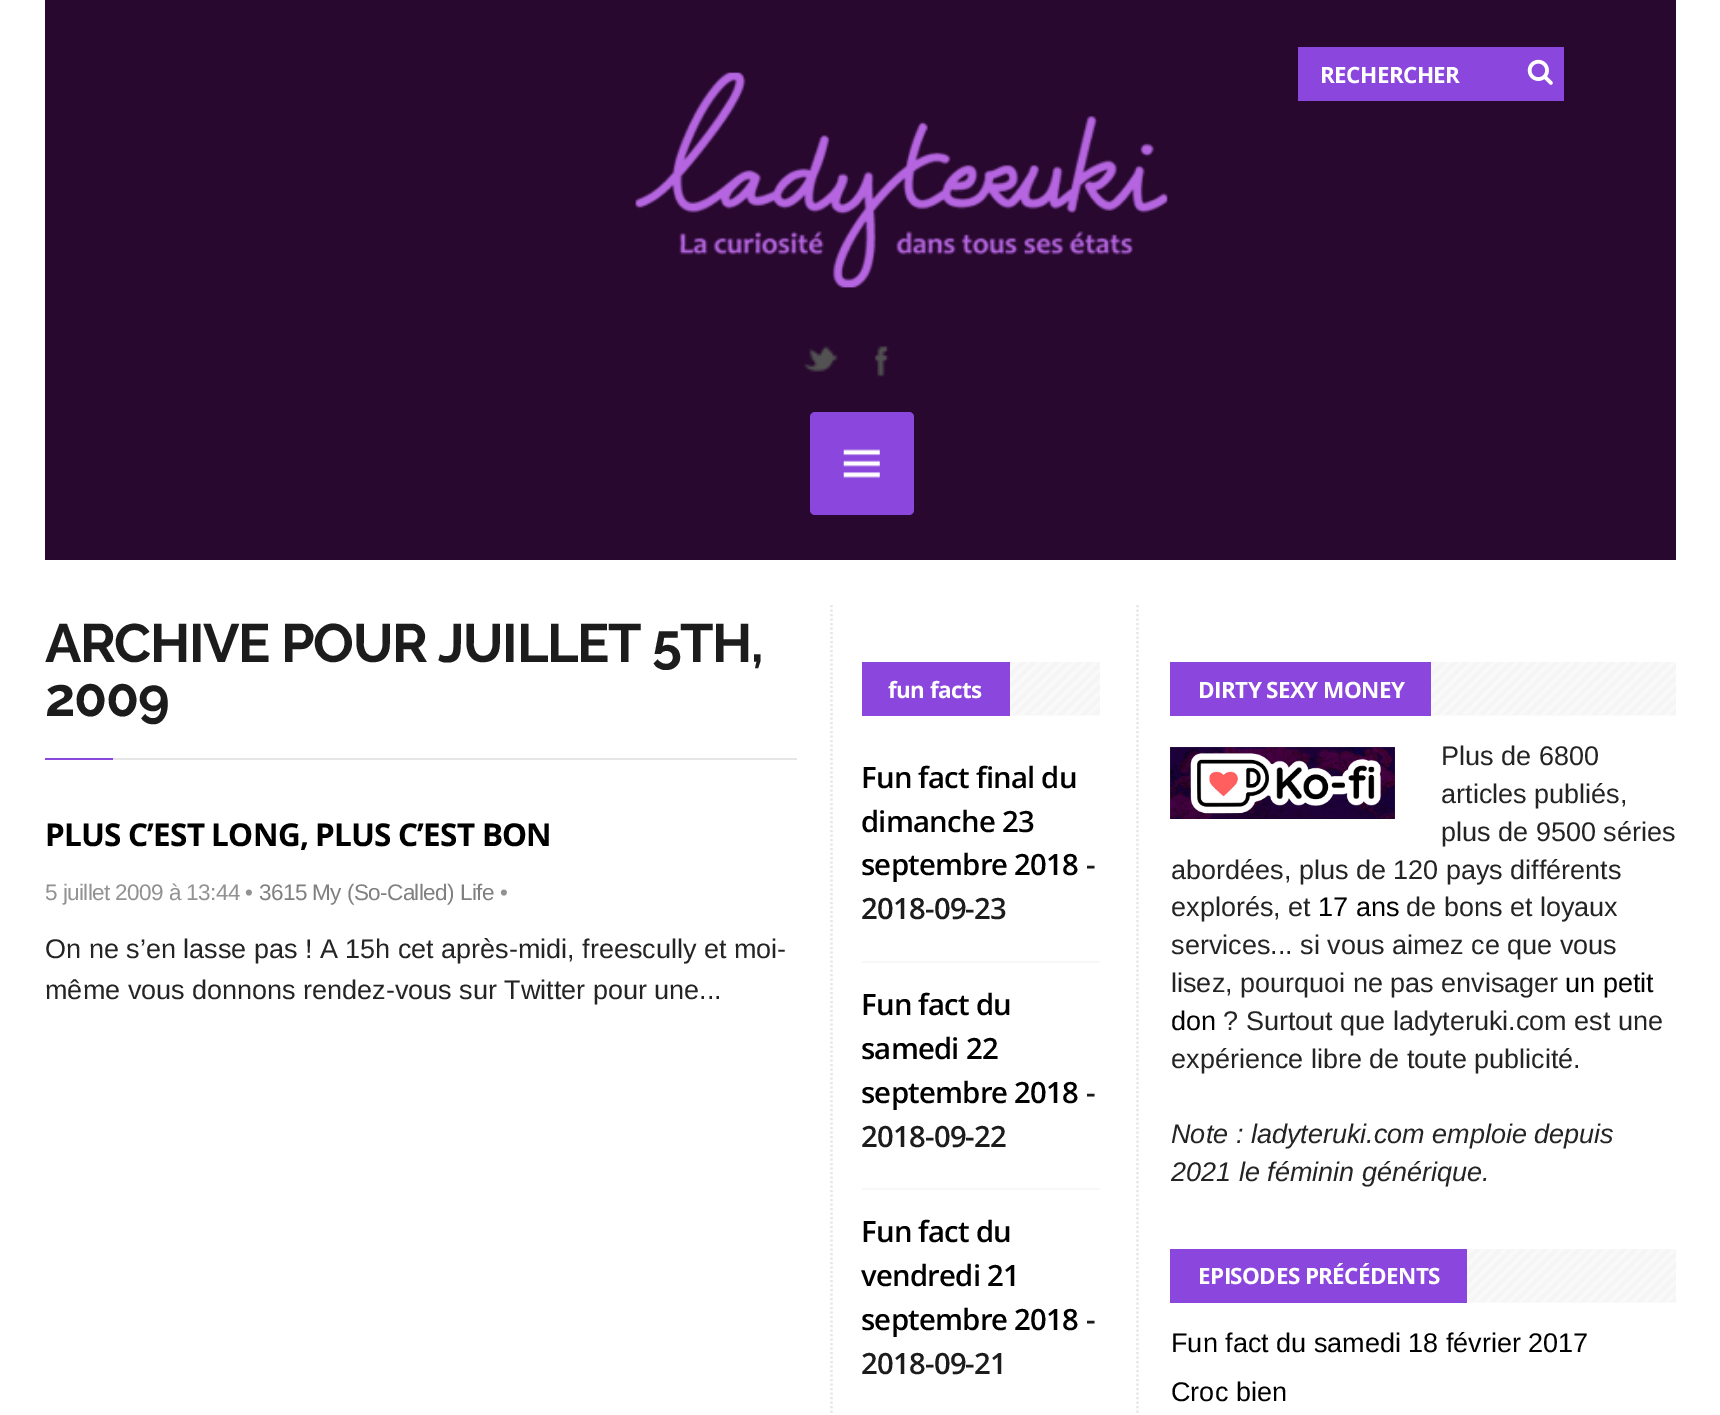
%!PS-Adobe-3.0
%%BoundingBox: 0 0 1720 1415
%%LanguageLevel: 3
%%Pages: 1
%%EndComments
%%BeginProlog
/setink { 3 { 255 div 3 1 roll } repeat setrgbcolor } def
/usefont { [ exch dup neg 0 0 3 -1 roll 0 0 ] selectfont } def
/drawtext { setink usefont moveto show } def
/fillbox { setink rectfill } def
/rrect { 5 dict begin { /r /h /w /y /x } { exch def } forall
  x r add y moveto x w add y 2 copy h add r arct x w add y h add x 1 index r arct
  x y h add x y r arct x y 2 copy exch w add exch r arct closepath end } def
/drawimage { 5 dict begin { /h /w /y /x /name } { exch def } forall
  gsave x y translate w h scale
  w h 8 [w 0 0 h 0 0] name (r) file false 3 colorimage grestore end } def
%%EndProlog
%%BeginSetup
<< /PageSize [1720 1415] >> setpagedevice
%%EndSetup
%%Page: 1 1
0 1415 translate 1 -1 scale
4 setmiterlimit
0 0 1720 1415 255 255 255 fillbox
45 0 1631 560 40 8 47 fillbox
(assets/img1.rgb) 635 72 533 216 drawimage
(assets/img2.rgb) 803 346 35 26 drawimage
(assets/img3.rgb) 874 346 15 31 drawimage
1298 47 266 54 139 71 221 fillbox
/OpenSans-Bold 22.5 usefont
255 255 255 setink
1320 83 moveto -0.6 0 (RECHERCHER) ashow
(assets/img4.rgb) 1527 59 26 26 drawimage
139 71 221 setink
810 412 104 103 5 rrect fill
(assets/img5.rgb) 843 449 37 29 drawimage
/Raleway-Bold 54 usefont
28 28 28 setink
45 662 moveto -1.35 0 (ARCHIVE POUR JUILLET 5TH,) ashow
45 716 moveto -1.35 0 (2009) ashow
113 758 684 2 230 230 230 fillbox
45 758 68 2 139 71 221 fillbox
/OpenSans-Bold 31.5 usefont
0 0 0 setink
45 846 moveto -0.8 0 (PLUS C’EST LONG, PLUS C’EST BON) ashow
/LiberationSans-Regular 22.5 usefont
146 146 146 setink
45 900 moveto -0.6 0 (5 juillet 2009 à 13:44 •) ashow
128 128 128 setink
259 900 moveto -0.6 0 (3615 My \(So-Called\) Life) ashow
146 146 146 setink
500 900 moveto -0.6 0 (•) ashow
(On ne s’en lasse pas ! A 15h cet après-midi, freescully et moi-) 45 958 /LiberationSans-Regular 27 36 36 36 drawtext
(même vous donnons rendez-vous sur Twitter pour une...) 45 999 /LiberationSans-Regular 27 36 36 36 drawtext
230 230 230 setink
2.2 setlinewidth
[2.25 2.25] 0 setdash
831.5 605 moveto 831.5 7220 lineto stroke
1010 662 90 54 250 250 250 fillbox
(assets/img6.rgb) 1010 662 90 53 drawimage
862 662 148 54 139 71 221 fillbox
/OpenSans-Bold 22.5 usefont
255 255 255 setink
888 698 moveto -0.6 0 (fun facts) ashow
(assets/img7.rgb) 862 961 238 2 drawimage
/OpenSans-SemiBold 29.25 usefont
0 0 0 setink
861 788 moveto -0.75 0 (Fun fact final du) ashow
861 832 moveto -0.75 0 (dimanche 23) ashow
861 875 moveto -0.75 0 (septembre 2018) ashow
28 28 28 setink
1086 875 moveto -0.75 0 (-) ashow
861 919 moveto -0.75 0 (2018-09-23) ashow
(assets/img8.rgb) 862 1188 238 2 drawimage
0 0 0 setink
861 1015 moveto -0.75 0 (Fun fact du) ashow
861 1059 moveto -0.75 0 (samedi 22) ashow
861 1103 moveto -0.75 0 (septembre 2018) ashow
28 28 28 setink
1086 1103 moveto -0.75 0 (-) ashow
861 1147 moveto -0.75 0 (2018-09-22) ashow
0 0 0 setink
861 1242 moveto -0.75 0 (Fun fact du) ashow
861 1286 moveto -0.75 0 (vendredi 21) ashow
861 1330 moveto -0.75 0 (septembre 2018) ashow
28 28 28 setink
1086 1330 moveto -0.75 0 (-) ashow
861 1374 moveto -0.75 0 (2018-09-21) ashow
230 230 230 setink
1137.5 605 moveto 1137.5 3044 lineto stroke
1431 662 245 54 250 250 250 fillbox
(assets/img9.rgb) 1431 662 245 53 drawimage
1170 662 261 54 139 71 221 fillbox
/OpenSans-Bold 22.5 usefont
255 255 255 setink
1198 698 moveto -0.6 0 (DIRTY SEXY MONEY) ashow
(assets/img10.rgb) 1170 747 225 72 drawimage
(Plus de 6800) 1441 765 /LiberationSans-Regular 27 36 36 36 drawtext
(articles publiés,) 1441 803 /LiberationSans-Regular 27 36 36 36 drawtext
(plus de 9500 séries) 1441 841 /LiberationSans-Regular 27 36 36 36 drawtext
(abordées, plus de 120 pays différents) 1171 879 /LiberationSans-Regular 27 36 36 36 drawtext
(explorés, et) 1171 916 /LiberationSans-Regular 27 36 36 36 drawtext
(17 ans) 1318 916 /LiberationSans-Regular 27 0 0 0 drawtext
(de bons et loyaux) 1406 916 /LiberationSans-Regular 27 36 36 36 drawtext
(services... si vous aimez ce que vous) 1171 954 /LiberationSans-Regular 27 36 36 36 drawtext
(lisez, pourquoi ne pas envisager) 1171 992 /LiberationSans-Regular 27 36 36 36 drawtext
(un petit) 1565 992 /LiberationSans-Regular 27 0 0 0 drawtext
(don) 1171 1030 /LiberationSans-Regular 27 0 0 0 drawtext
(? Surtout que ladyteruki.com est une) 1223 1030 /LiberationSans-Regular 27 36 36 36 drawtext
(expérience libre de toute publicité.) 1171 1068 /LiberationSans-Regular 27 36 36 36 drawtext
(Note : ladyteruki.com emploie depuis) 1171 1143 /LiberationSans-Italic 27 36 36 36 drawtext
(2021 le féminin générique.) 1171 1181 /LiberationSans-Italic 27 36 36 36 drawtext
1467 1249 209 54 250 250 250 fillbox
(assets/img11.rgb) 1467 1249 209 53 drawimage
1170 1249 297 54 139 71 221 fillbox
/OpenSans-Bold 22.5 usefont
255 255 255 setink
1198 1284 moveto -0.6 0 (EPISODES PRÉCÉDENTS) ashow
(Fun fact du samedi 18 février 2017) 1171 1352 /LiberationSans-Regular 27 0 0 0 drawtext
(Croc bien) 1171 1401 /LiberationSans-Regular 27 0 0 0 drawtext
showpage
%%EOF
